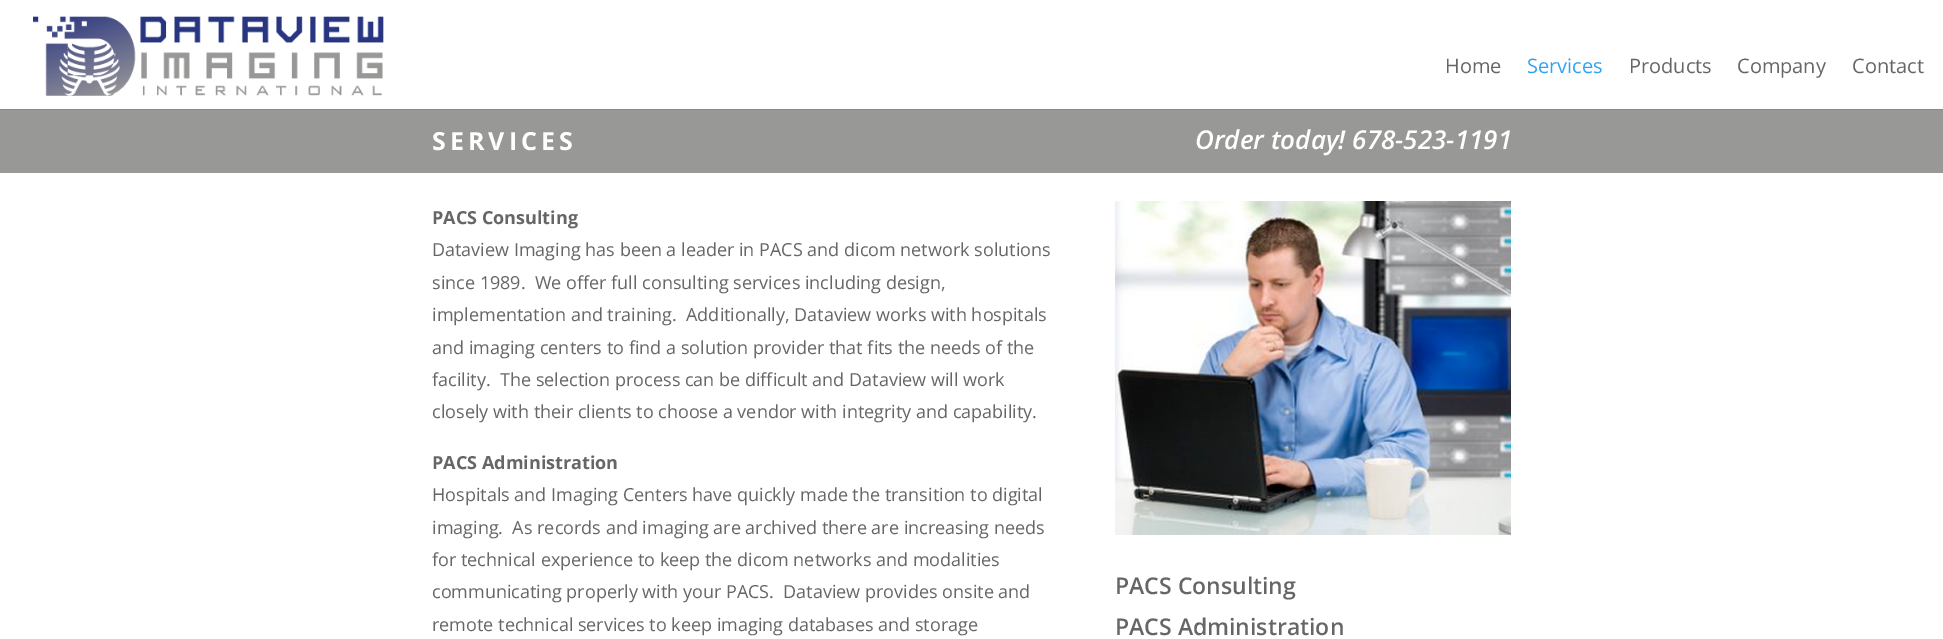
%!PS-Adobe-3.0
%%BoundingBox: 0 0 1943 639
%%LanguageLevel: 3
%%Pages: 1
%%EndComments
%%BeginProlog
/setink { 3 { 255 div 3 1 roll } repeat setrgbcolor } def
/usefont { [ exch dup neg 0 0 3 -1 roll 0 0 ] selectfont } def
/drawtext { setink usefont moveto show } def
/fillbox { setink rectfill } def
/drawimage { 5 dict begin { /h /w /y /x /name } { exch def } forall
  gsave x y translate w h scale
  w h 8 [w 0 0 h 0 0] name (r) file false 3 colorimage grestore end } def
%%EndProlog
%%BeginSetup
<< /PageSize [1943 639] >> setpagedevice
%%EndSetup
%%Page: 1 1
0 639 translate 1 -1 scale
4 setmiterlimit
0 0 1943 639 255 255 255 fillbox
0 109 1943 1 137 137 136 fillbox
(assets/img1.rgb) 33 16 351 80 drawimage
(Home) 1445 73 /OpenSans-Regular 20 102 102 102 drawtext
(Services) 1527 73 /OpenSans-Regular 20 46 163 242 drawtext
(Products) 1629 73 /OpenSans-Regular 20 102 102 102 drawtext
(Company) 1737 73 /OpenSans-Regular 20 102 102 102 drawtext
(Contact) 1852 73 /OpenSans-Regular 20 102 102 102 drawtext
0 110 1943 63 152 152 151 fillbox
/OpenSans-Bold 25 usefont
255 255 255 setink
432 150 moveto 4 0 (SERVICES) ashow
(Order today! 678-523-1191) 1195 149 /OpenSans-SemiBoldItalic 26 255 255 255 drawtext
(PACS Consulting) 432 224 /OpenSans-Bold 18 102 102 102 drawtext
(Dataview Imaging has been a leader in PACS and dicom network solutions) 432 256 /OpenSans-Regular 18 102 102 102 drawtext
(since 1989.  We offer full consulting services including design,) 432 289 /OpenSans-Regular 18 102 102 102 drawtext
(implementation and training.  Additionally, Dataview works with hospitals) 432 321 /OpenSans-Regular 18 102 102 102 drawtext
(and imaging centers to find a solution provider that fits the needs of the) 432 354 /OpenSans-Regular 18 102 102 102 drawtext
(facility.  The selection process can be difficult and Dataview will work) 432 386 /OpenSans-Regular 18 102 102 102 drawtext
(closely with their clients to choose a vendor with integrity and capability.) 432 418 /OpenSans-Regular 18 102 102 102 drawtext
(PACS Administration) 432 469 /OpenSans-Bold 18 102 102 102 drawtext
(Hospitals and Imaging Centers have quickly made the transition to digital) 432 501 /OpenSans-Regular 18 102 102 102 drawtext
(imaging.  As records and imaging are archived there are increasing needs) 432 534 /OpenSans-Regular 18 102 102 102 drawtext
(for technical experience to keep the dicom networks and modalities) 432 566 /OpenSans-Regular 18 102 102 102 drawtext
(communicating properly with your PACS.  Dataview provides onsite and) 432 598 /OpenSans-Regular 18 102 102 102 drawtext
(remote technical services to keep imaging databases and storage) 432 631 /OpenSans-Regular 18 102 102 102 drawtext
(assets/img2.rgb) 1115 201 396 334 drawimage
(PACS Consulting) 1115 594 /OpenSans-SemiBold 23 102 102 102 drawtext
(PACS Administration) 1115 635 /OpenSans-SemiBold 23 102 102 102 drawtext
showpage
%%EOF
